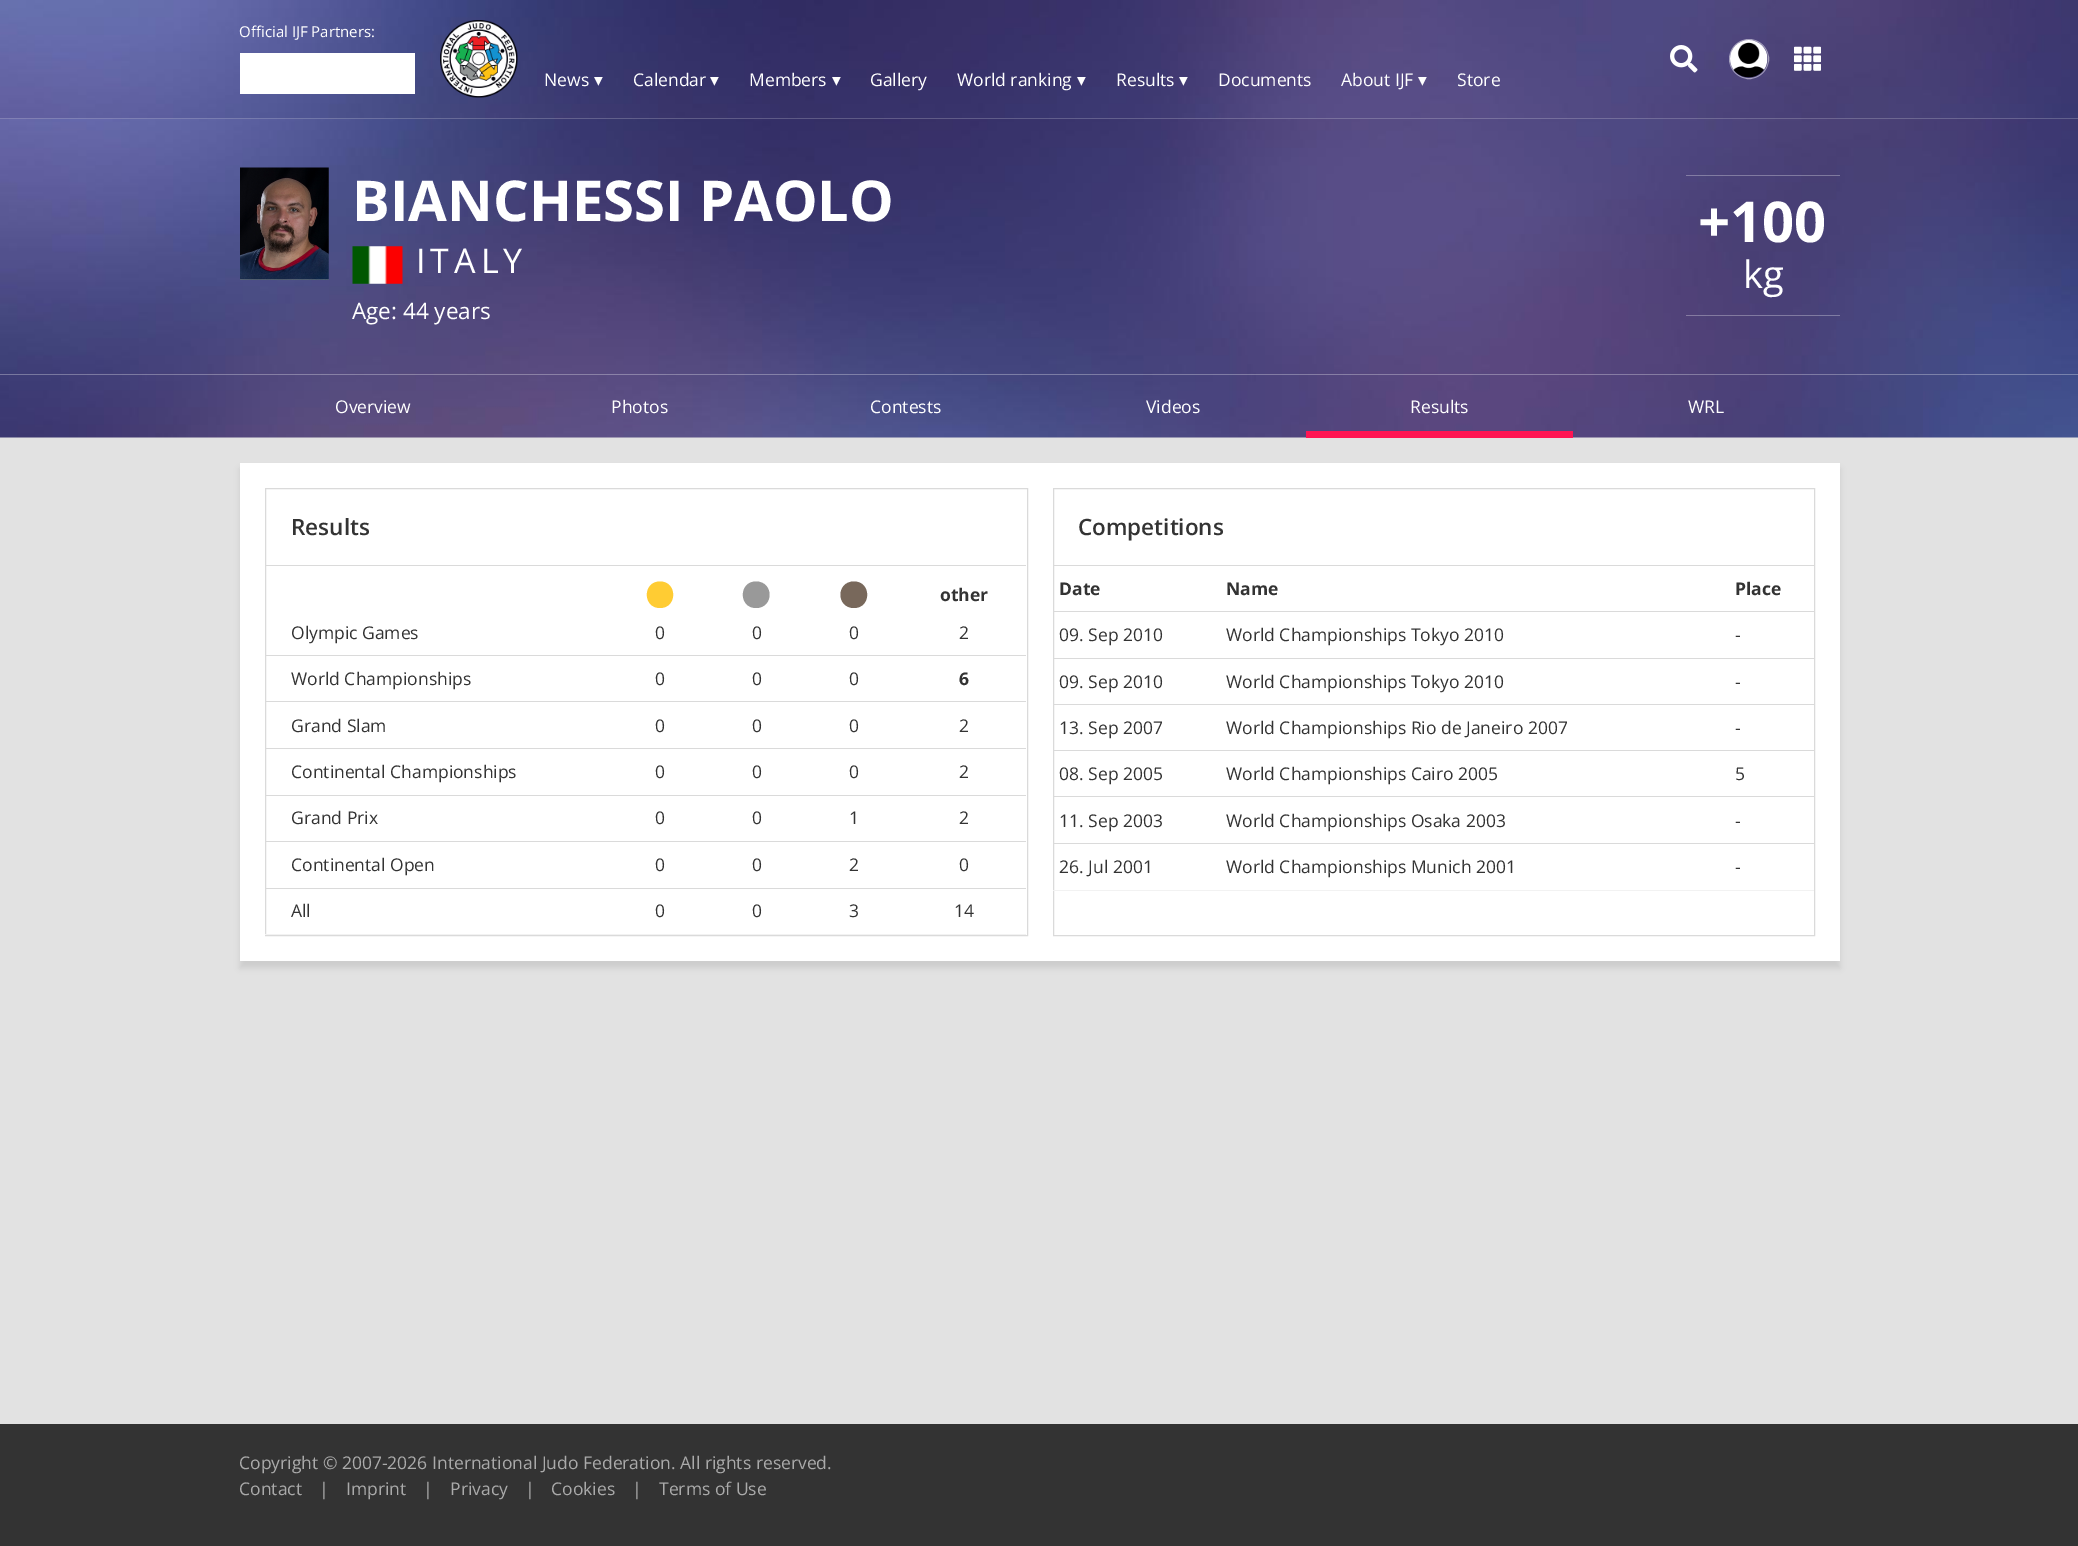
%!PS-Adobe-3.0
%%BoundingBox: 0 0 2078 1546
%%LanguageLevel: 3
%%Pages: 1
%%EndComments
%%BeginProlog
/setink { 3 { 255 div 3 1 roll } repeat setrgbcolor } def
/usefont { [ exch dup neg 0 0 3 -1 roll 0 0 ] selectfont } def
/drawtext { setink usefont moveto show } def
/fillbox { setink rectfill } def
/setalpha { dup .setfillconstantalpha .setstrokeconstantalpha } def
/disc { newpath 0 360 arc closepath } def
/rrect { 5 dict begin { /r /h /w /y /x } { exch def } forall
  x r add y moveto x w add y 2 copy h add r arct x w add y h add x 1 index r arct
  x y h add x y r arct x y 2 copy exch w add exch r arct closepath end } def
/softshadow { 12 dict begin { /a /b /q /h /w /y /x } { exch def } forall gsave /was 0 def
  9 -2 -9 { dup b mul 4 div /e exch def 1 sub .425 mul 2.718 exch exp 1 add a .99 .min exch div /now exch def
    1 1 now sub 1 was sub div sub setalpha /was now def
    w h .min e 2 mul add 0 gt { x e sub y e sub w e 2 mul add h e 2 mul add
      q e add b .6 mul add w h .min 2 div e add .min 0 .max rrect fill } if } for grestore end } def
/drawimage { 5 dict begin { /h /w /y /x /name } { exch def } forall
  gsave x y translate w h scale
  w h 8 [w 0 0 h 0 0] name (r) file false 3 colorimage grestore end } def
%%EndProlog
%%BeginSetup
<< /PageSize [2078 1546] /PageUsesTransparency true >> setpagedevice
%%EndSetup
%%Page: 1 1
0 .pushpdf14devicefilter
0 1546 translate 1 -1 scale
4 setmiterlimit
0 0 2078 1546 226 226 226 fillbox
(assets/img6.rgb) 0 118 2078 320 drawimage
(assets/img1.rgb) 0 0 2078 119 drawimage
0.2 setalpha
0 118 2078 1 255 255 255 fillbox
1 setalpha
(Official IJF Partners:) 239 37 /OpenSans-Regular 15 255 255 255 drawtext
240 53 175 41 255 255 255 fillbox
(assets/img2.rgb) 440 20 78 78 drawimage
(assets/img3.rgb) 1670 45 28 28 drawimage
0.5 setalpha
1749 59 19.5 disc stroke
1 setalpha
(assets/img4.rgb) 1730 40 38 38 drawimage
(assets/img5.rgb) 1794 46 27 25 drawimage
(News) 544 86 /OpenSans-Regular 17.5 255 255 255 drawtext
(▾) 594 86 /DejaVuSans-Regular 17.5 255 255 255 drawtext
(Calendar) 633 86 /OpenSans-Regular 17.5 255 255 255 drawtext
(▾) 710 86 /DejaVuSans-Regular 17.5 255 255 255 drawtext
(Members) 749 86 /OpenSans-Regular 17.5 255 255 255 drawtext
(▾) 832 86 /DejaVuSans-Regular 17.5 255 255 255 drawtext
(Gallery) 870 86 /OpenSans-Regular 17.5 255 255 255 drawtext
(World ranking) 957 86 /OpenSans-Regular 17.5 255 255 255 drawtext
(▾) 1077 86 /DejaVuSans-Regular 17.5 255 255 255 drawtext
(Results) 1116 86 /OpenSans-Regular 17.5 255 255 255 drawtext
(▾) 1179 86 /DejaVuSans-Regular 17.5 255 255 255 drawtext
(Documents) 1218 86 /OpenSans-Regular 17.5 255 255 255 drawtext
(About IJF) 1341 86 /OpenSans-Regular 17.5 255 255 255 drawtext
(▾) 1418 86 /DejaVuSans-Regular 17.5 255 255 255 drawtext
(Store) 1457 86 /OpenSans-Regular 17.5 255 255 255 drawtext
(assets/img7.rgb) 240 167 89 113 drawimage
(BIANCHESSI PAOLO) 352 221 /OpenSans-Bold 56.25 255 255 255 drawtext
(assets/img8.rgb) 352 246 51 38 drawimage
/OpenSans-Regular 34 usefont
416 273 moveto 5 0 (ITALY) ashow
(Age: 44 years) 352 319 /OpenSans-Regular 22.5 255 255 255 drawtext
0.3 setalpha
1686 175 154 1 255 255 255 fillbox
1686 315 154 1 255 255 255 fillbox
1 setalpha
(+100) 1698 242 /OpenSans-Bold 56.25 255 255 255 drawtext
(kg) 1743 288 /OpenSans-Regular 38 255 255 255 drawtext
0.3 setalpha
0 374 2078 1 255 255 255 fillbox
1 setalpha
(Overview) 335 413 /OpenSans-Regular 17.5 255 255 255 drawtext
(Photos) 611 413 /OpenSans-Regular 17.5 255 255 255 drawtext
(Contests) 870 413 /OpenSans-Regular 17.5 255 255 255 drawtext
(Videos) 1146 413 /OpenSans-Regular 17.5 255 255 255 drawtext
(Results) 1410 413 /OpenSans-Regular 17.5 255 255 255 drawtext
1306 431 267 7 255 21 83 fillbox
(WRL) 1688 413 /OpenSans-Regular 17.5 255 255 255 drawtext
0 0 0 setink
240 469 1600 499 0 3 0.1 softshadow
240 463 1600 498 255 255 255 fillbox
218 218 218 setink
265.5 488.5 762 447 rectstroke
266 565 760 1 218 218 218 fillbox
(Results) 291 535 /OpenSans-SemiBold 22.5 51 51 51 drawtext
255 204 51 setink
660 581.5 moveto 642.5 581.5 642.5 608 660 608 curveto 677.5 608 677.5 581.5 660 581.5 curveto closepath fill
153 153 153 setink
756 581.5 moveto 738.5 581.5 738.5 608 756 608 curveto 774 608 774 581.5 756 581.5 curveto closepath fill
120 104 91 setink
854 581.5 moveto 836 581.5 836 608 854 608 curveto 871.5 608 871.5 581.5 854 581.5 curveto closepath fill
(other) 940 601 /OpenSans-Bold 17.5 51 51 51 drawtext
(Olympic Games) 291 639 /OpenSans-Regular 17.5 51 51 51 drawtext
(0) 655 639 /OpenSans-Regular 17.5 51 51 51 drawtext
(0) 752 639 /OpenSans-Regular 17.5 51 51 51 drawtext
(0) 849 639 /OpenSans-Regular 17.5 51 51 51 drawtext
(2) 959 639 /OpenSans-Regular 17.5 51 51 51 drawtext
(World Championships) 291 685 /OpenSans-Regular 17.5 51 51 51 drawtext
(0) 655 685 /OpenSans-Regular 17.5 51 51 51 drawtext
(0) 752 685 /OpenSans-Regular 17.5 51 51 51 drawtext
(0) 849 685 /OpenSans-Regular 17.5 51 51 51 drawtext
265 655 761 1 218 218 218 fillbox
(6) 959 685 /OpenSans-Bold 17.5 51 51 51 drawtext
(Grand Slam) 291 732 /OpenSans-Regular 17.5 51 51 51 drawtext
(0) 655 732 /OpenSans-Regular 17.5 51 51 51 drawtext
(0) 752 732 /OpenSans-Regular 17.5 51 51 51 drawtext
(0) 849 732 /OpenSans-Regular 17.5 51 51 51 drawtext
265 701 761 1 218 218 218 fillbox
(2) 959 732 /OpenSans-Regular 17.5 51 51 51 drawtext
(Continental Championships) 291 778 /OpenSans-Regular 17.5 51 51 51 drawtext
(0) 655 778 /OpenSans-Regular 17.5 51 51 51 drawtext
(0) 752 778 /OpenSans-Regular 17.5 51 51 51 drawtext
(0) 849 778 /OpenSans-Regular 17.5 51 51 51 drawtext
265 748 761 1 218 218 218 fillbox
(2) 959 778 /OpenSans-Regular 17.5 51 51 51 drawtext
(Grand Prix) 291 824 /OpenSans-Regular 17.5 51 51 51 drawtext
(0) 655 824 /OpenSans-Regular 17.5 51 51 51 drawtext
(0) 752 824 /OpenSans-Regular 17.5 51 51 51 drawtext
(1) 849 824 /OpenSans-Regular 17.5 51 51 51 drawtext
265 795 761 1 218 218 218 fillbox
(2) 959 824 /OpenSans-Regular 17.5 51 51 51 drawtext
(Continental Open) 291 871 /OpenSans-Regular 17.5 51 51 51 drawtext
(0) 655 871 /OpenSans-Regular 17.5 51 51 51 drawtext
(0) 752 871 /OpenSans-Regular 17.5 51 51 51 drawtext
(2) 849 871 /OpenSans-Regular 17.5 51 51 51 drawtext
265 841 761 1 218 218 218 fillbox
(0) 959 871 /OpenSans-Regular 17.5 51 51 51 drawtext
(All) 291 917 /OpenSans-Regular 17.5 51 51 51 drawtext
(0) 655 917 /OpenSans-Regular 17.5 51 51 51 drawtext
(0) 752 917 /OpenSans-Regular 17.5 51 51 51 drawtext
(3) 849 917 /OpenSans-Regular 17.5 51 51 51 drawtext
265 888 761 1 218 218 218 fillbox
265 934 761 1 242 242 242 fillbox
(14) 954 917 /OpenSans-Regular 17.5 51 51 51 drawtext
218 218 218 setink
1053.5 488.5 761 447 rectstroke
1054 565 760 1 218 218 218 fillbox
(Competitions) 1078 535 /OpenSans-SemiBold 22.5 51 51 51 drawtext
(Date) 1059 595 /OpenSans-Bold 17.5 51 51 51 drawtext
(Name) 1226 595 /OpenSans-Bold 17.5 51 51 51 drawtext
(Place) 1735 595 /OpenSans-Bold 17.5 51 51 51 drawtext
(09. Sep 2010) 1059 641 /OpenSans-Regular 17.5 51 51 51 drawtext
(World Championships Tokyo 2010) 1226 641 /OpenSans-Regular 17.5 51 51 51 drawtext
1053 611 761 1 218 218 218 fillbox
(-) 1735 641 /OpenSans-Regular 17.5 51 51 51 drawtext
(09. Sep 2010) 1059 688 /OpenSans-Regular 17.5 51 51 51 drawtext
(World Championships Tokyo 2010) 1226 688 /OpenSans-Regular 17.5 51 51 51 drawtext
1053 658 761 1 218 218 218 fillbox
(-) 1735 688 /OpenSans-Regular 17.5 51 51 51 drawtext
(13. Sep 2007) 1059 734 /OpenSans-Regular 17.5 51 51 51 drawtext
(World Championships Rio de Janeiro 2007) 1226 734 /OpenSans-Regular 17.5 51 51 51 drawtext
1053 704 761 1 218 218 218 fillbox
(-) 1735 734 /OpenSans-Regular 17.5 51 51 51 drawtext
(08. Sep 2005) 1059 780 /OpenSans-Regular 17.5 51 51 51 drawtext
(World Championships Cairo 2005) 1226 780 /OpenSans-Regular 17.5 51 51 51 drawtext
1053 750 761 1 218 218 218 fillbox
(5) 1735 780 /OpenSans-Regular 17.5 51 51 51 drawtext
(11. Sep 2003) 1059 827 /OpenSans-Regular 17.5 51 51 51 drawtext
(World Championships Osaka 2003) 1226 827 /OpenSans-Regular 17.5 51 51 51 drawtext
1053 796 761 1 218 218 218 fillbox
(-) 1735 827 /OpenSans-Regular 17.5 51 51 51 drawtext
(26. Jul 2001) 1059 873 /OpenSans-Regular 17.5 51 51 51 drawtext
(World Championships Munich 2001) 1226 873 /OpenSans-Regular 17.5 51 51 51 drawtext
1053 843 761 1 218 218 218 fillbox
1053 890 761 1 242 242 242 fillbox
(-) 1735 873 /OpenSans-Regular 17.5 51 51 51 drawtext
0 1424 2078 122 51 51 51 fillbox
(Copyright © 2007-2026 International Judo Federation. All rights reserved.) 239 1469 /OpenSans-Regular 17.5 170 170 170 drawtext
(Contact) 239 1495 /OpenSans-Regular 17.5 170 170 170 drawtext
(|) 319 1495 /OpenSans-Regular 17.5 170 170 170 drawtext
(Imprint) 346 1495 /OpenSans-Regular 17.5 170 170 170 drawtext
(|) 423 1495 /OpenSans-Regular 17.5 170 170 170 drawtext
(Privacy) 450 1495 /OpenSans-Regular 17.5 170 170 170 drawtext
(|) 525 1495 /OpenSans-Regular 17.5 170 170 170 drawtext
(Cookies) 551 1495 /OpenSans-Regular 17.5 170 170 170 drawtext
(|) 632 1495 /OpenSans-Regular 17.5 170 170 170 drawtext
(Terms of Use) 659 1495 /OpenSans-Regular 17.5 170 170 170 drawtext
.poppdf14devicefilter showpage
%%EOF
